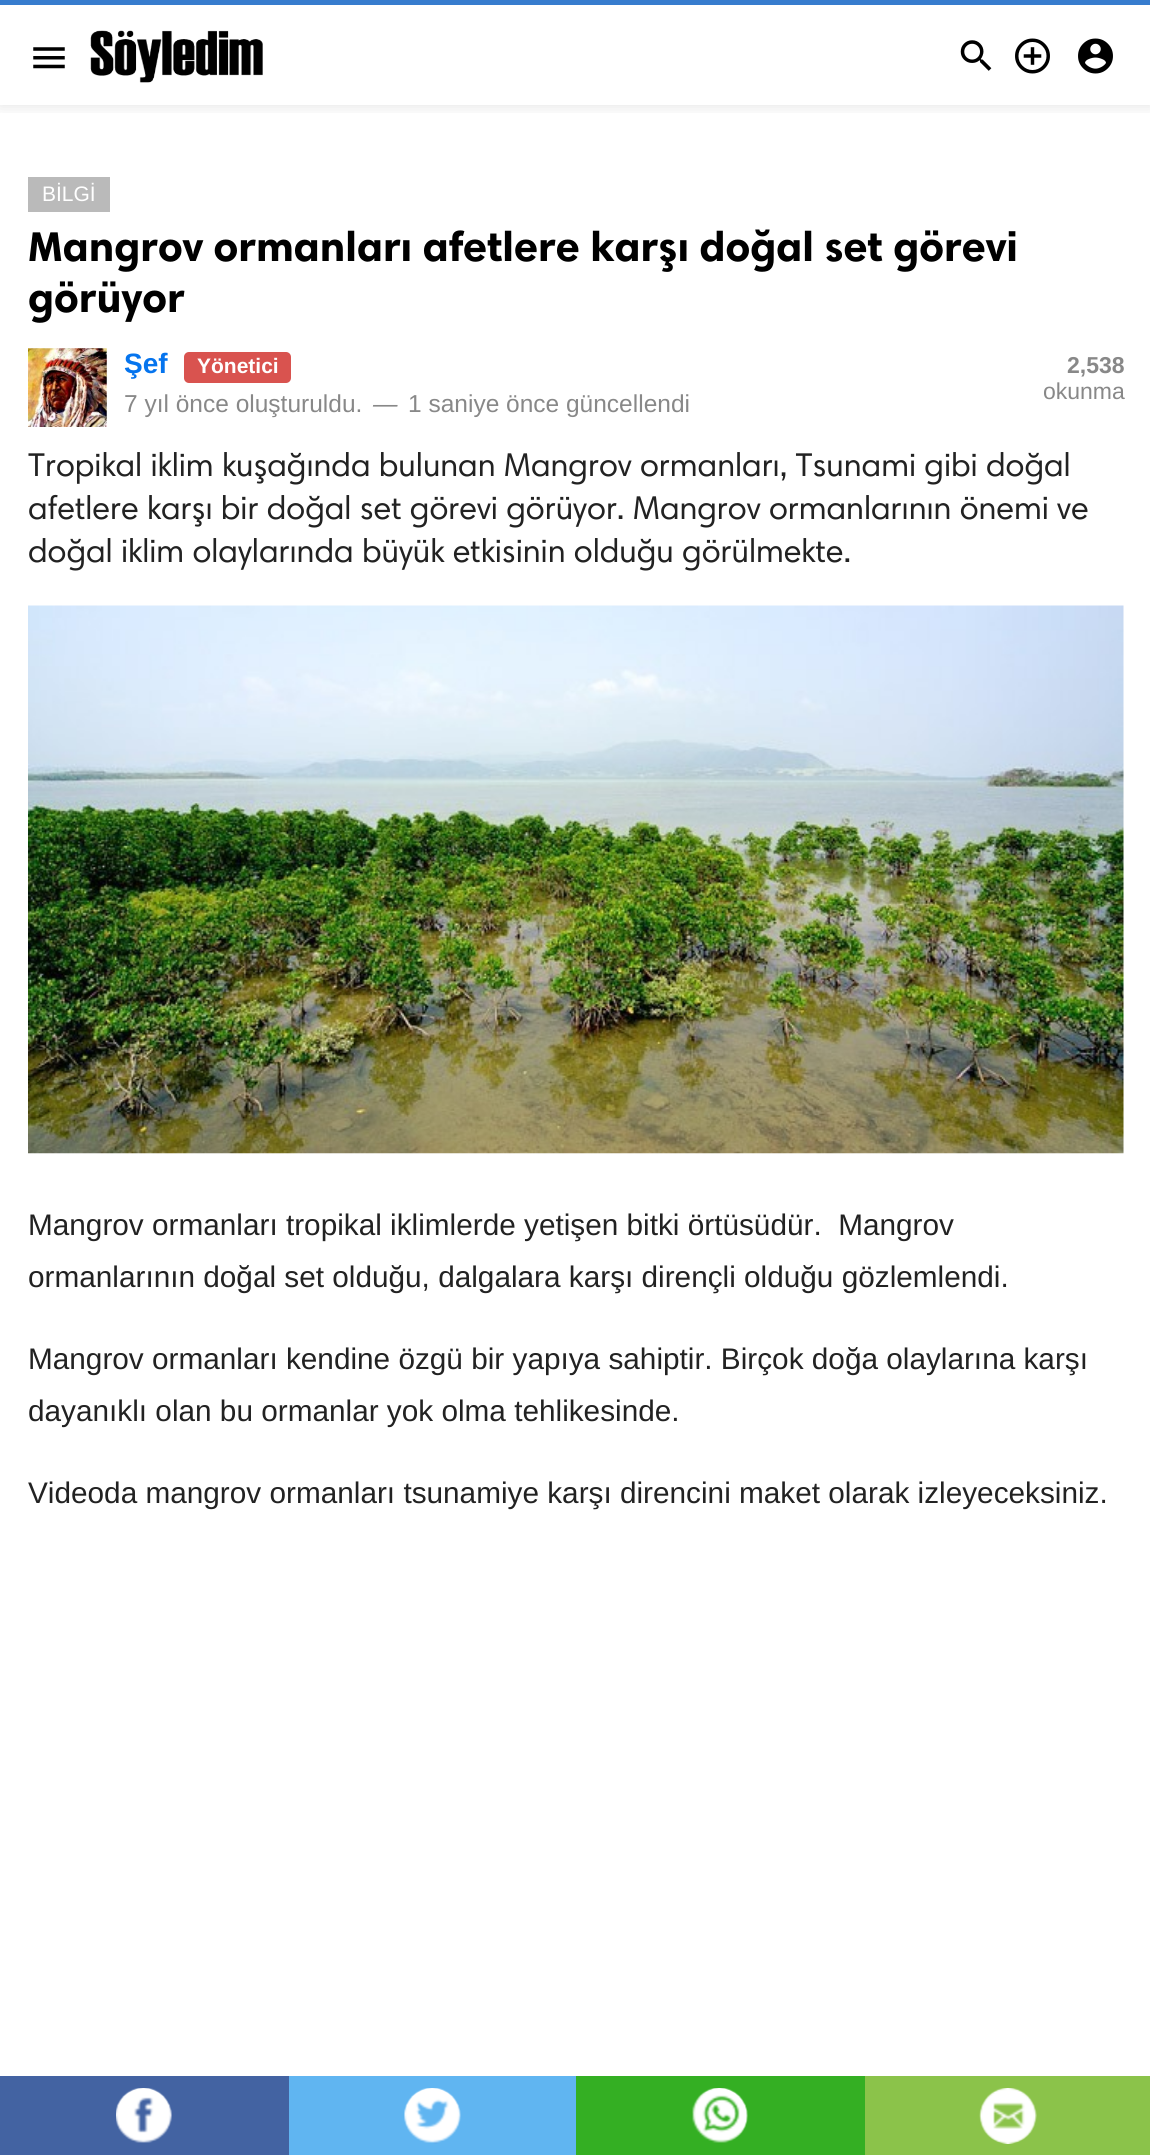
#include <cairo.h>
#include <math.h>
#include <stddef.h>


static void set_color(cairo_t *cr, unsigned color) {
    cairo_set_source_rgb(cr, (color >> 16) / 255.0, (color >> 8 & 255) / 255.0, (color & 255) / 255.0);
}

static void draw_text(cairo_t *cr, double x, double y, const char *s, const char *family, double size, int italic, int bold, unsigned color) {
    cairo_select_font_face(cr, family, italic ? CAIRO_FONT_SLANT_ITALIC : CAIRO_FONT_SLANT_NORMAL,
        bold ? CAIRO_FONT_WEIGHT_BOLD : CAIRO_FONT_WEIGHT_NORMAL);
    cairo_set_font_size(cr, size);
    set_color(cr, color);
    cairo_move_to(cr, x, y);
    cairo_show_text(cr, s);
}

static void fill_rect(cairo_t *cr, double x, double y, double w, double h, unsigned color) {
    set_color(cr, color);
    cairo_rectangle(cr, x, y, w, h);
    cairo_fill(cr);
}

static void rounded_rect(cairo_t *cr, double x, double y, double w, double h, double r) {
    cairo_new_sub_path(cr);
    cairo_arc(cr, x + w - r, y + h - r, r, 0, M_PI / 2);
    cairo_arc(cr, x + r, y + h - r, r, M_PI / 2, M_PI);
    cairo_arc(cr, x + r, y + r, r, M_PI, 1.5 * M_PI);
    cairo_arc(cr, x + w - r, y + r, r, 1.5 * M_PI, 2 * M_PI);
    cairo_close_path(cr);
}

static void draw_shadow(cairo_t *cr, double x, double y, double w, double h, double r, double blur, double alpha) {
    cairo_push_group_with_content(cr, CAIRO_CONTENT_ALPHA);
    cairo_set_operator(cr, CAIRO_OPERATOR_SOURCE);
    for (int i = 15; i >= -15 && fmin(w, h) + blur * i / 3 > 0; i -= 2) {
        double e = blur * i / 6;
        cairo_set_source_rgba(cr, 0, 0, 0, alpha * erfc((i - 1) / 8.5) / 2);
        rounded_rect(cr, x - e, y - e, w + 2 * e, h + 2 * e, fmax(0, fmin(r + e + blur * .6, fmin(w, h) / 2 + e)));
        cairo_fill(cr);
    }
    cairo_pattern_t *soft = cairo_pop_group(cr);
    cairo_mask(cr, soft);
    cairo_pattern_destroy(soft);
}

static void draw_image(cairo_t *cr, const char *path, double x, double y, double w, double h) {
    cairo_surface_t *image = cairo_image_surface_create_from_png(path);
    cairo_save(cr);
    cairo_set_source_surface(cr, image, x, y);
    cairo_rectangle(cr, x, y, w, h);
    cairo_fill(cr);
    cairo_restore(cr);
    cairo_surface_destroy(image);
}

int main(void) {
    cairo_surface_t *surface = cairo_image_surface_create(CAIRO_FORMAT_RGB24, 1150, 2155);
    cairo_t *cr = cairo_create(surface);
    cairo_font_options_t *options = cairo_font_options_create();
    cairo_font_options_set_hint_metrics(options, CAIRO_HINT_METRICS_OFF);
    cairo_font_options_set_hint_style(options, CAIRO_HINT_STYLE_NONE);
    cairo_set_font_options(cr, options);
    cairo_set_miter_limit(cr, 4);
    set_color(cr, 0xFFFFFF);
    cairo_paint(cr);
    cairo_save(cr);
    cairo_rectangle(cr, 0, 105, 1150, 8);
    cairo_clip(cr);
    set_color(cr, 0x000000);
    draw_shadow(cr, 0, 2, 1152, 105, 0, 7, 0.1);
    cairo_restore(cr);
    fill_rect(cr, 0, 0, 1150, 5, 0x377CCE);
    draw_image(cr, "assets/img1.png", 33, 47, 32, 22);
    draw_image(cr, "assets/img2.png", 90, 30, 173, 53);
    draw_image(cr, "assets/img3.png", 960, 40, 32, 31);
    draw_image(cr, "assets/img4.png", 1015, 38, 35, 36);
    draw_image(cr, "assets/img5.png", 1078, 38, 35, 36);
    fill_rect(cr, 28, 177, 82, 35, 0xBABABA);
    draw_text(cr, 42, 201, "BİLGİ", "Liberation Sans", 21, 0, 0, 0xFFFFFF);
    draw_text(cr, 28, 261, "Mangrov ormanları afetlere karşı doğal set görevi", "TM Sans", 42, 0, 1, 0x000000);
    draw_text(cr, 28, 312, "görüyor", "TM Sans", 42, 0, 1, 0x000000);
    draw_image(cr, "assets/img6.png", 28, 348, 79, 79);
    draw_text(cr, 124, 373, "Şef", "Liberation Sans", 28, 0, 1, 0x0574EE);
    set_color(cr, 0xD9534F);
    rounded_rect(cr, 184, 352, 107, 31, 5);
    cairo_fill(cr);
    draw_text(cr, 197, 373, "Yönetici", "Liberation Sans", 21, 0, 1, 0xFFFFFF);
    draw_text(cr, 124, 412, "7 yıl önce oluşturuldu.", "Liberation Sans", 24.5, 0, 0, 0x888888);
    draw_text(cr, 373, 412, "—", "Liberation Sans", 24.5, 1, 0, 0x888888);
    draw_text(cr, 408, 412, "1 saniye önce güncellendi", "Liberation Sans", 24.5, 0, 0, 0x888888);
    draw_text(cr, 1067, 373, "2,538", "Liberation Sans", 23, 0, 1, 0x888888);
    draw_text(cr, 1043, 399, "okunma", "Liberation Sans", 23, 0, 0, 0x888888);
    draw_text(cr, 28, 476, "Tropikal iklim kuşağında bulunan Mangrov ormanları, Tsunami gibi doğal", "TM Sans", 33.25, 0, 0, 0x222222);
    draw_text(cr, 28, 519, "afetlere karşı bir doğal set görevi görüyor. Mangrov ormanlarının önemi ve", "TM Sans", 33.25, 0, 0, 0x222222);
    draw_text(cr, 28, 562, "doğal iklim olaylarında büyük etkisinin olduğu görülmekte.", "TM Sans", 33.25, 0, 0, 0x222222);
    draw_image(cr, "assets/img7.png", 28, 605, 1096, 549);
    draw_text(cr, 28, 1235, "Mangrov ormanları tropikal iklimlerde yetişen bitki örtüsüdür.  Mangrov", "Liberation Sans", 29.75, 0, 0, 0x222222);
    draw_text(cr, 28, 1287, "ormanlarının doğal set olduğu, dalgalara karşı dirençli olduğu gözlemlendi.", "Liberation Sans", 29.75, 0, 0, 0x222222);
    draw_text(cr, 28, 1369, "Mangrov ormanları kendine özgü bir yapıya sahiptir. Birçok doğa olaylarına karşı", "Liberation Sans", 29.75, 0, 0, 0x222222);
    draw_text(cr, 28, 1421, "dayanıklı olan bu ormanlar yok olma tehlikesinde.", "Liberation Sans", 29.75, 0, 0, 0x222222);
    draw_text(cr, 28, 1503, "Videoda mangrov ormanları tsunamiye karşı direncini maket olarak izleyeceksiniz.", "Liberation Sans", 29.75, 0, 0, 0x222222);
    fill_rect(cr, 0, 2076, 289, 79, 0x4363A2);
    draw_image(cr, "assets/img8.png", 116, 2088, 56, 55);
    fill_rect(cr, 289, 2076, 287, 79, 0x60B5F1);
    draw_image(cr, "assets/img9.png", 404, 2088, 57, 56);
    fill_rect(cr, 576, 2076, 289, 79, 0x34AF23);
    draw_image(cr, "assets/img10.png", 692, 2088, 56, 55);
    fill_rect(cr, 865, 2076, 285, 79, 0x8BC34A);
    draw_image(cr, "assets/img11.png", 979, 2088, 58, 56);
    cairo_surface_write_to_png(surface, "output.png");
    cairo_font_options_destroy(options);
    cairo_destroy(cr);
    cairo_surface_destroy(surface);
    return 0;
}
